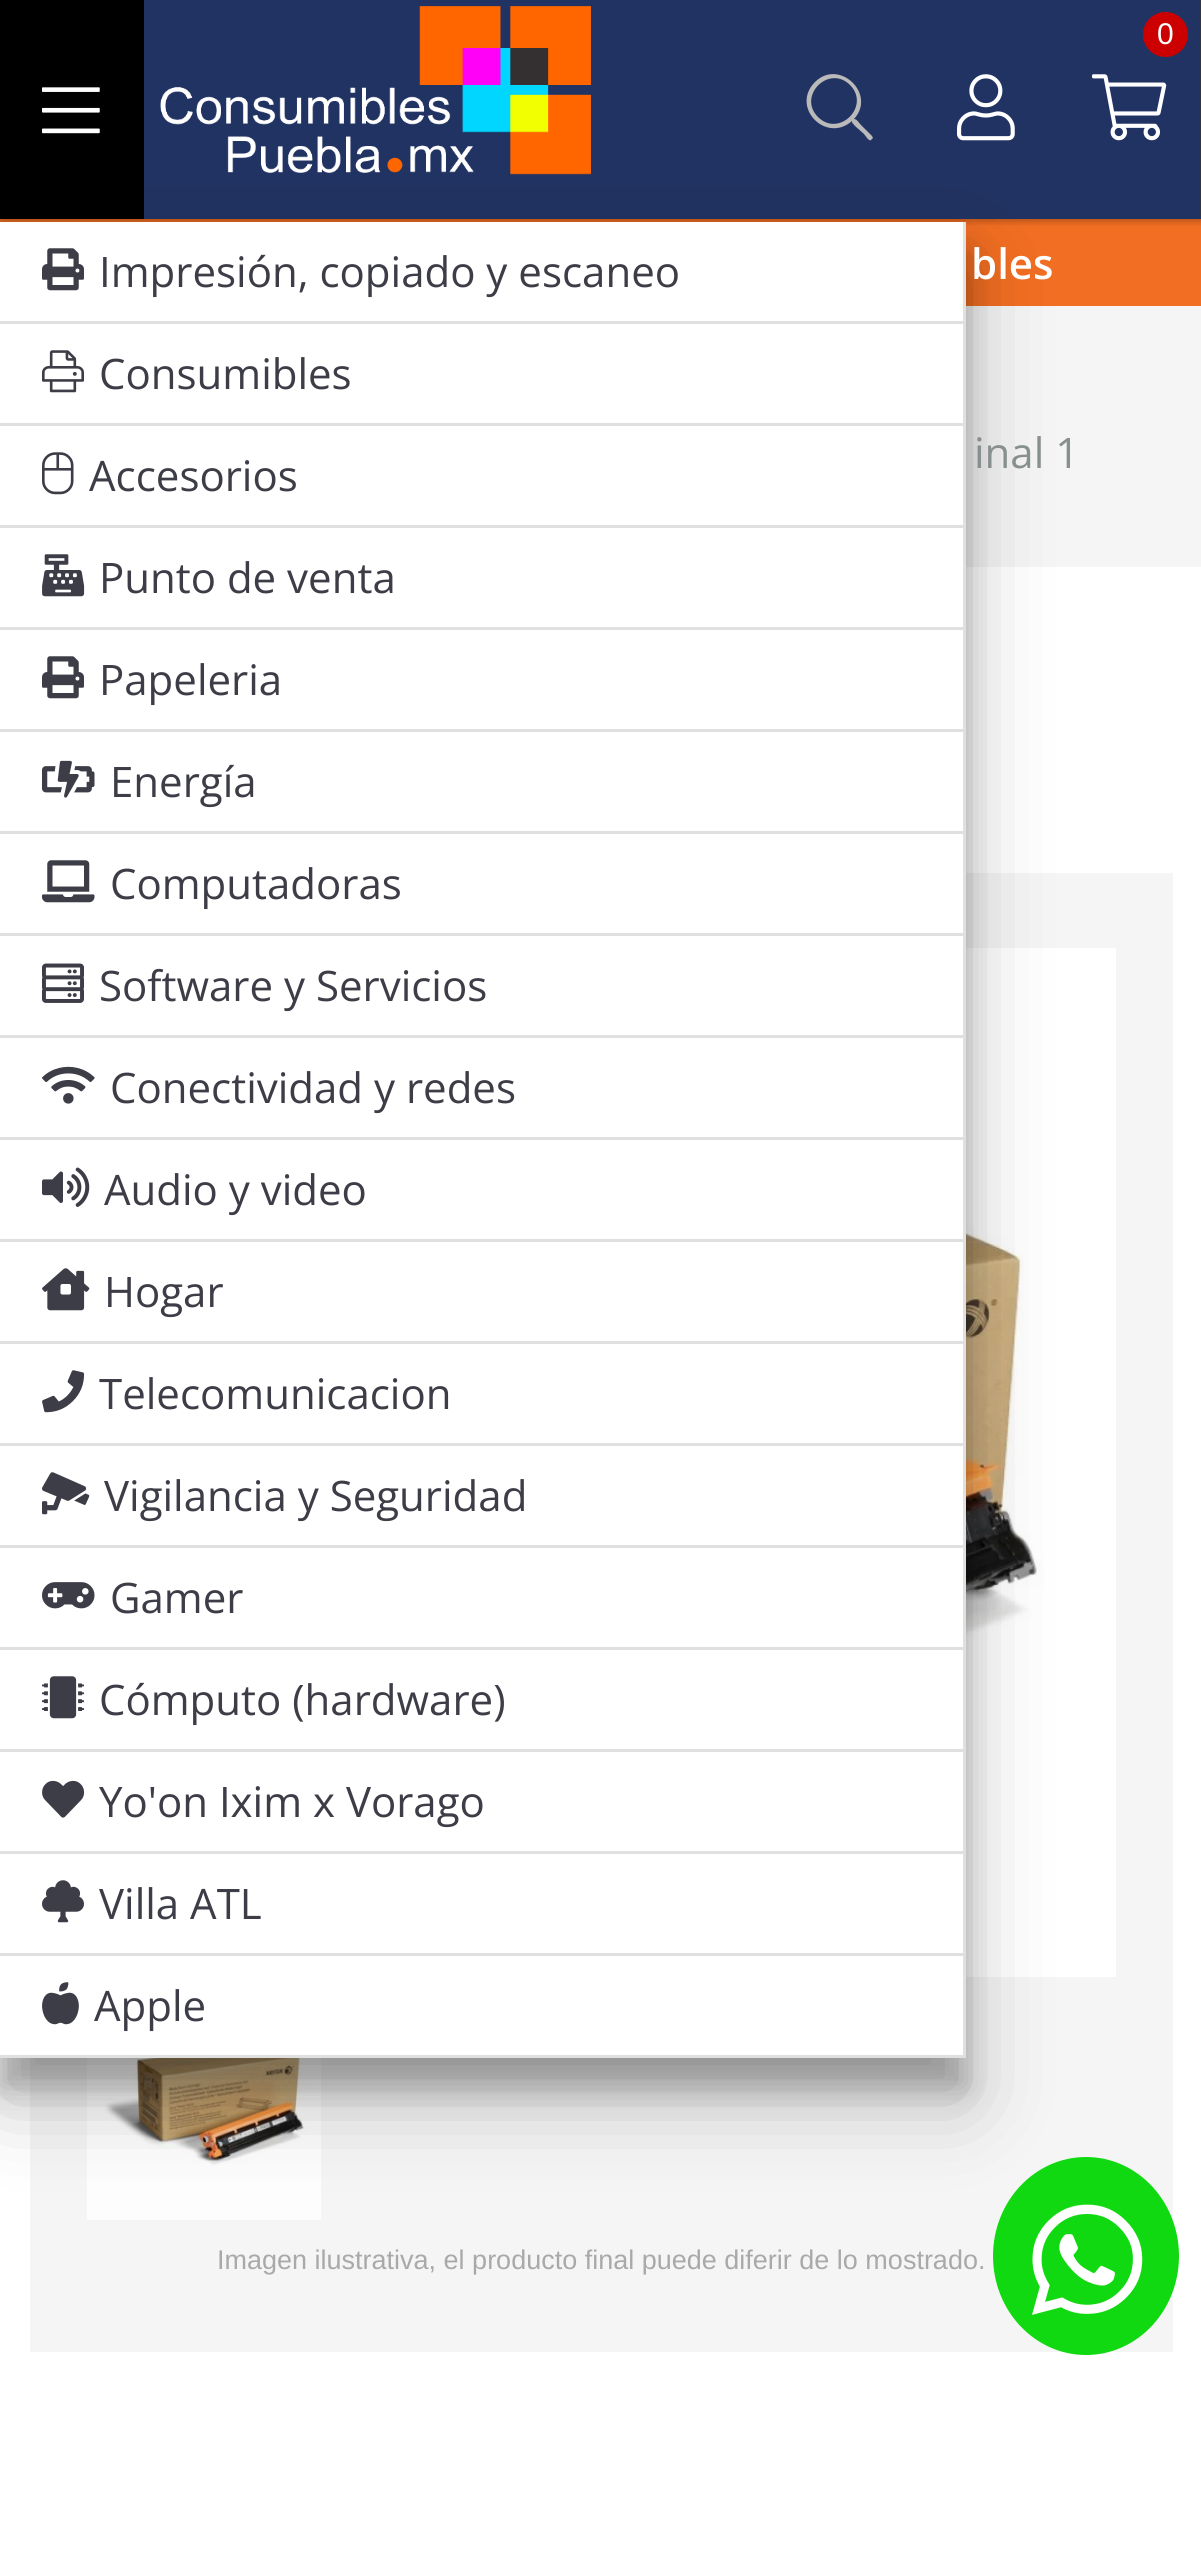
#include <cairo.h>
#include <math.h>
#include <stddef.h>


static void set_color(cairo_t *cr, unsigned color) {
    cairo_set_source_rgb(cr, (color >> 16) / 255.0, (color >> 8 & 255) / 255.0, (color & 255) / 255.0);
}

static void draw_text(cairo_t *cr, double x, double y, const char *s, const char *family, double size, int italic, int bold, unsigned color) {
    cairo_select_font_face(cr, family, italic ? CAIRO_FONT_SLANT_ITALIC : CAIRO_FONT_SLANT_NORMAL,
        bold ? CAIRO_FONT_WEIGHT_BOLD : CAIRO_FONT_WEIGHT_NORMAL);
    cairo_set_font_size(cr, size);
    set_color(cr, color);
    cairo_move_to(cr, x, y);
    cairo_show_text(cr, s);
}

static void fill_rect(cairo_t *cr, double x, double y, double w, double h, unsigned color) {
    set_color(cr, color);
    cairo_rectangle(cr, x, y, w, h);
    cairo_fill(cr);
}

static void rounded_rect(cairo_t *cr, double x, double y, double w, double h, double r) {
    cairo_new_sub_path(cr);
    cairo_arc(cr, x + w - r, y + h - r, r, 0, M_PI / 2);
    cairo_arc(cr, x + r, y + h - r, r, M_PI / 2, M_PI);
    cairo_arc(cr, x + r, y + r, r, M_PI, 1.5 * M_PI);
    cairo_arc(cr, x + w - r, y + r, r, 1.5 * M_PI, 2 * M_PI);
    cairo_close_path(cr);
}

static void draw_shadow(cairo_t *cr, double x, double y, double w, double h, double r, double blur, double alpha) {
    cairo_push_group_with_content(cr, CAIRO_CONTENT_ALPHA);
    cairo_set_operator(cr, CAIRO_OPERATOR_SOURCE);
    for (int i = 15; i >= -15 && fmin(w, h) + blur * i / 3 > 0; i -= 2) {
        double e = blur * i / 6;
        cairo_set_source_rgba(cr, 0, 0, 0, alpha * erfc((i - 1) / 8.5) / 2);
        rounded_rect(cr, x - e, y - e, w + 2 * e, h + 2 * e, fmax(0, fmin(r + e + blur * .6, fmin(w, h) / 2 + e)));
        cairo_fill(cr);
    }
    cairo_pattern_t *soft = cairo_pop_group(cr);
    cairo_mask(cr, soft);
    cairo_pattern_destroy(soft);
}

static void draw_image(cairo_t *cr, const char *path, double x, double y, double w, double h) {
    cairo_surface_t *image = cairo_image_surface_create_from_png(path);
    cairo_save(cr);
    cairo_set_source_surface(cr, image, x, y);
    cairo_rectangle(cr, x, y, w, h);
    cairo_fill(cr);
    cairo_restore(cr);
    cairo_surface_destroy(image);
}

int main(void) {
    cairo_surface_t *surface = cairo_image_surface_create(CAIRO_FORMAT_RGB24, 1201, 2573);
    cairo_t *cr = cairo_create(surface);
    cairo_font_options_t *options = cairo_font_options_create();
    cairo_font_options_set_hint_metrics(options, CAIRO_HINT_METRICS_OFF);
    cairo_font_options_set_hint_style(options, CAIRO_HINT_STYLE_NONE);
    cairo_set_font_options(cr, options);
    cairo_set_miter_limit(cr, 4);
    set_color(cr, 0xFFFFFF);
    cairo_paint(cr);
    fill_rect(cr, 0, 219, 600, 3, 0xF26E22);
    fill_rect(cr, 600, 219, 601, 87, 0xF26E22);
    set_color(cr, 0x000000);
    draw_shadow(cr, 0, 3, 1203, 219, 0, 3, 0.12);
    draw_shadow(cr, 0, 3, 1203, 219, 0, 3, 0.12);
    fill_rect(cr, 144, 0, 1057, 219, 0x213362);
    draw_image(cr, "assets/img1.png", 160, 6, 431, 169);
    fill_rect(cr, 1200, 0, 1, 216, 0x303641);
    set_color(cr, 0xCC0000);
    cairo_arc(cr, 1165.5, 34.5, 22.5, 0, 2 * M_PI);
    cairo_fill(cr);
    draw_text(cr, 1157, 44, "0", "Liberation Sans", 30, 0, 0, 0xFFFFFF);
    fill_rect(cr, 0, 0, 144, 219, 0x000000);
    fill_rect(cr, 966, 306, 235, 261, 0xF5F5F5);
    fill_rect(cr, 30, 873, 1143, 1479, 0xF5F5F5);
    draw_image(cr, "assets/img22.png", 966, 948, 150, 1029);
    draw_image(cr, "assets/img23.png", 87, 2058, 234, 162);
    set_color(cr, 0x000000);
    draw_shadow(cr, 0, 264, 966, 1836, 0, 42, 0.25);
    draw_image(cr, "assets/img2.png", 1092, 74, 75, 67);
    set_color(cr, 0xBABABA);
    cairo_new_path(cr);
    cairo_move_to(cr, 872, 136);
    cairo_line_to(cr, 873, 138);
    cairo_line_to(cr, 871, 140);
    cairo_curve_to(cr, 869, 142, 865, 135, 864, 134);
    cairo_line_to(cr, 855, 126);
    cairo_curve_to(cr, 853, 123, 852, 124, 852, 121);
    cairo_curve_to(cr, 826, 144, 790, 107, 815, 82);
    cairo_curve_to(cr, 839, 58, 877, 94, 854, 119);
    cairo_curve_to(cr, 857, 119, 859, 123, 861, 125);
    cairo_close_path(cr);
    cairo_move_to(cr, 818, 117);
    cairo_curve_to(cr, 839, 138, 871, 106, 850, 85);
    cairo_curve_to(cr, 829, 64, 797, 96, 818, 117);
    cairo_close_path(cr);
    cairo_fill(cr);
    draw_image(cr, "assets/img3.png", 957, 74, 58, 67);
    draw_image(cr, "assets/img4.png", 42, 87, 58, 47);
    set_color(cr, 0x000000);
    draw_shadow(cr, 0, 252, 966, 1836, 0, 15, 0.22);
    fill_rect(cr, 0, 222, 963, 1833, 0xFFFFFF);
    fill_rect(cr, 963, 222, 3, 1836, 0xE0E0E0);
    fill_rect(cr, 0, 321, 966, 3, 0xE0E0E0);
    draw_image(cr, "assets/img5.png", 42, 248, 42, 43);
    draw_text(cr, 99, 287, "Impresión, copiado y escaneo", "Open Sans", 42, 0, 0, 0x3D3D47);
    fill_rect(cr, 0, 423, 966, 3, 0xE0E0E0);
    draw_image(cr, "assets/img6.png", 42, 350, 42, 43);
    draw_text(cr, 99, 389, "Consumibles", "Open Sans", 42, 0, 0, 0x3D3D47);
    fill_rect(cr, 0, 525, 966, 3, 0xE0E0E0);
    draw_image(cr, "assets/img7.png", 42, 452, 32, 43);
    draw_text(cr, 89, 491, "Accesorios", "Open Sans", 42, 0, 0, 0x3D3D47);
    fill_rect(cr, 0, 627, 966, 3, 0xE0E0E0);
    draw_image(cr, "assets/img8.png", 42, 554, 43, 43);
    draw_text(cr, 99, 593, "Punto de venta", "Open Sans", 42, 0, 0, 0x3D3D47);
    fill_rect(cr, 0, 729, 966, 3, 0xE0E0E0);
    draw_image(cr, "assets/img5.png", 42, 656, 42, 43);
    draw_text(cr, 99, 695, "Papeleria", "Open Sans", 42, 0, 0, 0x3D3D47);
    fill_rect(cr, 0, 831, 966, 3, 0xE0E0E0);
    draw_image(cr, "assets/img9.png", 42, 760, 53, 38);
    draw_text(cr, 110, 797, "Energía", "Open Sans", 42, 0, 0, 0x3D3D47);
    fill_rect(cr, 0, 933, 966, 3, 0xE0E0E0);
    draw_image(cr, "assets/img10.png", 42, 860, 53, 43);
    draw_text(cr, 110, 899, "Computadoras", "Open Sans", 42, 0, 0, 0x3D3D47);
    fill_rect(cr, 0, 1035, 966, 3, 0xE0E0E0);
    draw_image(cr, "assets/img11.png", 42, 963, 42, 40);
    draw_text(cr, 99, 1001, "Software y Servicios", "Open Sans", 42, 0, 0, 0x3D3D47);
    fill_rect(cr, 0, 1137, 966, 3, 0xE0E0E0);
    draw_image(cr, "assets/img12.png", 42, 1066, 53, 38);
    draw_text(cr, 110, 1103, "Conectividad y redes", "Open Sans", 42, 0, 0, 0x3D3D47);
    fill_rect(cr, 0, 1239, 966, 3, 0xE0E0E0);
    draw_image(cr, "assets/img13.png", 42, 1167, 48, 40);
    draw_text(cr, 104, 1205, "Audio y video", "Open Sans", 42, 0, 0, 0x3D3D47);
    fill_rect(cr, 0, 1341, 966, 3, 0xE0E0E0);
    draw_image(cr, "assets/img14.png", 42, 1268, 48, 43);
    draw_text(cr, 104, 1307, "Hogar", "Open Sans", 42, 0, 0, 0x3D3D47);
    fill_rect(cr, 0, 1443, 966, 3, 0xE0E0E0);
    draw_image(cr, "assets/img15.png", 42, 1370, 43, 43);
    draw_text(cr, 99, 1409, "Telecomunicacion", "Open Sans", 42, 0, 0, 0x3D3D47);
    fill_rect(cr, 0, 1545, 966, 3, 0xE0E0E0);
    draw_image(cr, "assets/img16.png", 42, 1472, 48, 43);
    draw_text(cr, 104, 1511, "Vigilancia y Seguridad", "Open Sans", 42, 0, 0, 0x3D3D47);
    fill_rect(cr, 0, 1647, 966, 3, 0xE0E0E0);
    draw_image(cr, "assets/img17.png", 42, 1582, 53, 27);
    draw_text(cr, 110, 1613, "Gamer", "Open Sans", 42, 0, 0, 0x3D3D47);
    fill_rect(cr, 0, 1749, 966, 3, 0xE0E0E0);
    draw_image(cr, "assets/img18.png", 42, 1676, 42, 43);
    draw_text(cr, 99, 1715, "Cómputo (hardware)", "Open Sans", 42, 0, 0, 0x3D3D47);
    fill_rect(cr, 0, 1851, 966, 3, 0xE0E0E0);
    draw_image(cr, "assets/img19.png", 42, 1780, 43, 38);
    draw_text(cr, 99, 1817, "Yo'on Ixim x Vorago", "Open Sans", 42, 0, 0, 0x3D3D47);
    fill_rect(cr, 0, 1953, 966, 3, 0xE0E0E0);
    draw_image(cr, "assets/img20.png", 42, 1880, 42, 43);
    draw_text(cr, 99, 1919, "Villa ATL", "Open Sans", 42, 0, 0, 0x3D3D47);
    fill_rect(cr, 0, 2055, 966, 3, 0xE0E0E0);
    draw_image(cr, "assets/img21.png", 42, 1982, 37, 43);
    draw_text(cr, 94, 2021, "Apple", "Open Sans", 42, 0, 0, 0x3D3D47);
    draw_text(cr, 971, 279, "bles", "Open Sans SemiBold", 42, 0, 0, 0xFFFFFF);
    draw_text(cr, 974, 468, "inal 1", "Open Sans", 42, 0, 0, 0x888F8F);
    draw_text(cr, 217, 2269, "Imagen ilustrativa, el producto final puede diferir de lo mostrado.", "Liberation Sans", 27, 0, 0, 0xA9A9A9);
    set_color(cr, 0x11D911);
    cairo_new_path(cr);
    cairo_move_to(cr, 1086, 2157);
    cairo_curve_to(cr, 1137.5, 2157, 1179, 2201.5, 1179, 2256);
    cairo_curve_to(cr, 1179, 2310.5, 1137.5, 2355, 1086, 2355);
    cairo_curve_to(cr, 1034.5, 2355, 993, 2310.5, 993, 2256);
    cairo_curve_to(cr, 993, 2201.5, 1034.5, 2157, 1086, 2157);
    cairo_close_path(cr);
    cairo_fill(cr);
    draw_image(cr, "assets/img24.png", 1032, 2204, 111, 111);
    cairo_surface_write_to_png(surface, "output.png");
    cairo_font_options_destroy(options);
    cairo_destroy(cr);
    cairo_surface_destroy(surface);
    return 0;
}
